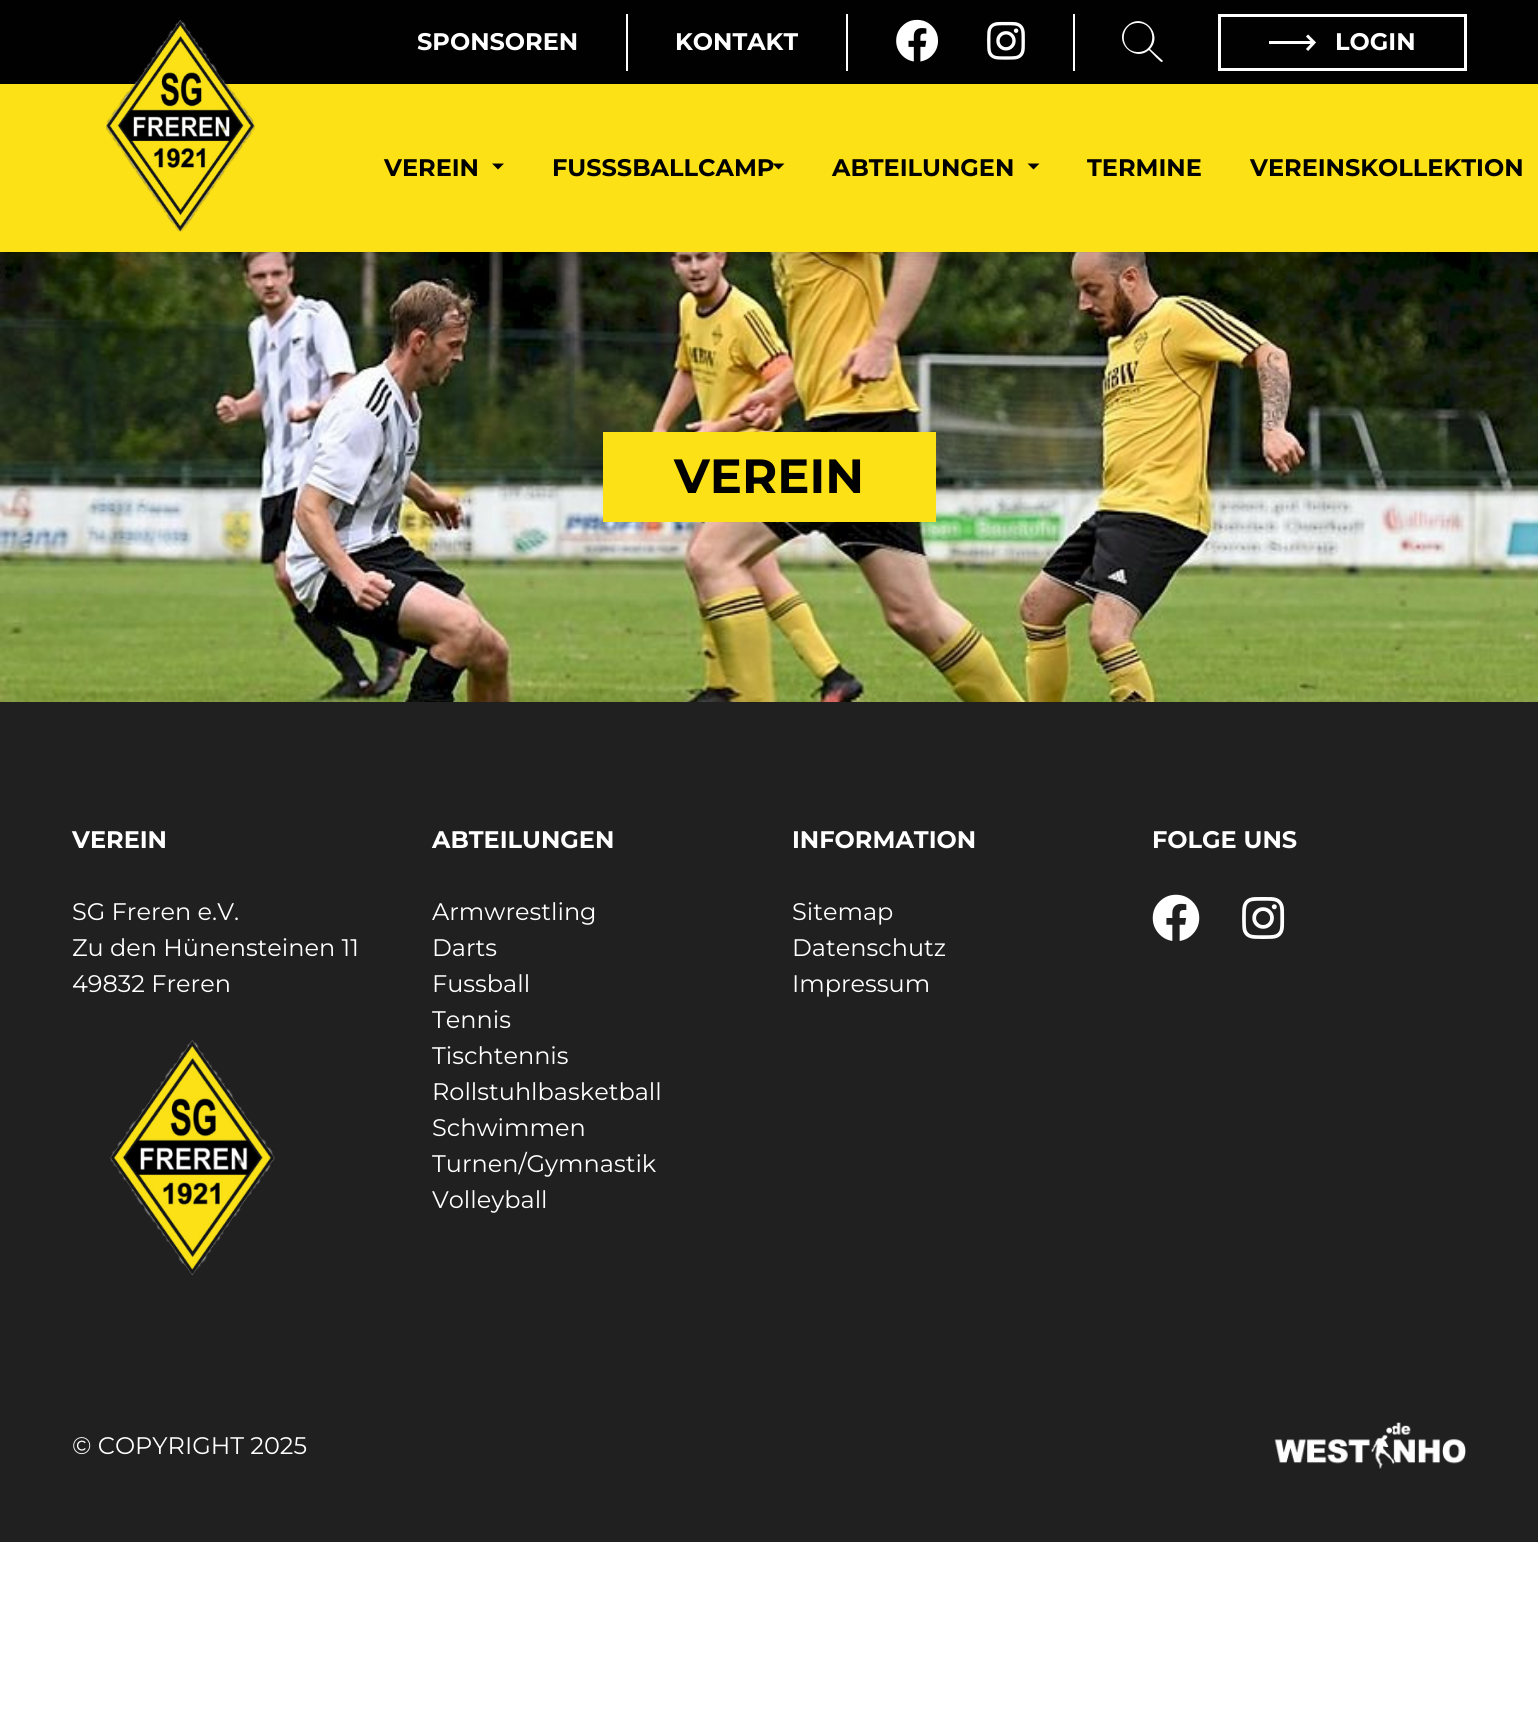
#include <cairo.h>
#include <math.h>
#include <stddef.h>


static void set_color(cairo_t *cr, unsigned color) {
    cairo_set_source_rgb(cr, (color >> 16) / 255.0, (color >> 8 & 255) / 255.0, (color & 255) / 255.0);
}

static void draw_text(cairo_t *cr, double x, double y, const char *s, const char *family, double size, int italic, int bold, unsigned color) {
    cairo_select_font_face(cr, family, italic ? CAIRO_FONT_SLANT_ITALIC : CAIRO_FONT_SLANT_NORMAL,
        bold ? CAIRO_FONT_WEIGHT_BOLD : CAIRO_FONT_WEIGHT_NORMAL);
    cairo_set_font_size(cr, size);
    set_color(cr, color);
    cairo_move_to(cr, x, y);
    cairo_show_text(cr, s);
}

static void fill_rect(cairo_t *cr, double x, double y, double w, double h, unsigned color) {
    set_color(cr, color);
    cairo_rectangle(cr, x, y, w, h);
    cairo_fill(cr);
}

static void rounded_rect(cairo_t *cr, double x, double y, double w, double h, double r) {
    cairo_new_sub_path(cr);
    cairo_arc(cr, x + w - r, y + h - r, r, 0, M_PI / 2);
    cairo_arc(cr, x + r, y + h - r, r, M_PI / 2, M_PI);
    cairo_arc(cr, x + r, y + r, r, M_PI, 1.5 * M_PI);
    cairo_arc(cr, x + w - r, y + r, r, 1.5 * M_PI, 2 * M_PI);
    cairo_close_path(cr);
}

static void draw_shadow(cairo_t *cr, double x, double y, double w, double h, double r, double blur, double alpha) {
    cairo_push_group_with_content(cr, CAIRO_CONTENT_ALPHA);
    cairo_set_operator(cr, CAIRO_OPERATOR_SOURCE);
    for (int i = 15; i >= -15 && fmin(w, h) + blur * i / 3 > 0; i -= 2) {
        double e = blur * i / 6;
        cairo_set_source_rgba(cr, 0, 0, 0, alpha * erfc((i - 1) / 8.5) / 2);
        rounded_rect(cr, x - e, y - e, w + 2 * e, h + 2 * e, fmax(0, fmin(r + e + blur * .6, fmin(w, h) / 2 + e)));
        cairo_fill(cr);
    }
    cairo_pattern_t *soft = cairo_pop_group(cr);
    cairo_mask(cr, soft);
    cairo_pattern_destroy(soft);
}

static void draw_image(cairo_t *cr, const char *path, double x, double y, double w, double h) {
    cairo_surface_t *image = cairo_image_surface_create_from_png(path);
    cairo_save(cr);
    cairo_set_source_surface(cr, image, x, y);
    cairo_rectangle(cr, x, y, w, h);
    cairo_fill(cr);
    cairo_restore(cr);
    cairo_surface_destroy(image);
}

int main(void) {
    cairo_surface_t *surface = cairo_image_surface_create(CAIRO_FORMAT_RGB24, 1538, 1736);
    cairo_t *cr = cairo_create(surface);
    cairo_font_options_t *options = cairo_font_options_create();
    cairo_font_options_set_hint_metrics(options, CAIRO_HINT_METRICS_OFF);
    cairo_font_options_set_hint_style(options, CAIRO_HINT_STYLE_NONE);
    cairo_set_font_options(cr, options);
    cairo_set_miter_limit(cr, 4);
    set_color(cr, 0xFFFFFF);
    cairo_paint(cr);
    draw_image(cr, "assets/img4.png", 0, 252, 1538, 450);
    set_color(cr, 0x000000);
    draw_shadow(cr, -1, 0, 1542, 255, 0, 11, 0.3);
    fill_rect(cr, 0, 0, 1538, 84, 0x010101);
    draw_text(cr, 417, 50, "SPONSOREN", "Montserrat Thin", 24, 0, 0, 0xFFFFFF);
    fill_rect(cr, 626, 14, 2, 57, 0xFFFFFF);
    draw_text(cr, 675, 50, "KONTAKT", "Montserrat Thin", 24, 0, 0, 0xFFFFFF);
    fill_rect(cr, 846, 14, 2, 57, 0xFFFFFF);
    draw_image(cr, "assets/img1.png", 896, 19, 42, 43);
    draw_image(cr, "assets/img2.png", 987, 21, 38, 39);
    fill_rect(cr, 1073, 14, 2, 57, 0xFFFFFF);
    cairo_new_path(cr);
    cairo_move_to(cr, 1163, 61);
    cairo_line_to(cr, 1150, 49);
    cairo_curve_to(cr, 1164, 34, 1142, 11, 1127, 26);
    cairo_curve_to(cr, 1112, 41, 1134, 63, 1149, 50);
    cairo_curve_to(cr, 1151, 52, 1161, 63, 1162, 62);
    cairo_close_path(cr);
    cairo_move_to(cr, 1138, 52);
    cairo_curve_to(cr, 1119, 52, 1119, 23, 1138, 23);
    cairo_curve_to(cr, 1157, 23, 1157, 52, 1138, 52);
    cairo_close_path(cr);
    cairo_fill(cr);
    cairo_rectangle(cr, 1219.5, 15.5, 246, 54);
    cairo_set_line_width(cr, 3);
    cairo_stroke(cr);
    fill_rect(cr, 1269, 41, 45, 3, 0xFFFFFF);
    cairo_new_path(cr);
    cairo_move_to(cr, 1307, 35.5);
    cairo_line_to(cr, 1314, 42.5);
    cairo_line_to(cr, 1307, 50);
    cairo_stroke(cr);
    draw_text(cr, 1335, 50, "LOGIN", "Montserrat Thin", 24, 0, 0, 0xFFFFFF);
    fill_rect(cr, 0, 84, 1538, 168, 0xFCE116);
    draw_image(cr, "assets/img3.png", 106, 20, 149, 212);
    draw_text(cr, 384, 176, "VEREIN", "Montserrat Thin", 24, 0, 0, 0x010101);
    cairo_new_path(cr);
    cairo_move_to(cr, 492, 163.5);
    cairo_line_to(cr, 504, 163.5);
    cairo_line_to(cr, 498, 169.5);
    cairo_close_path(cr);
    cairo_fill(cr);
    draw_text(cr, 552, 176, "FUSSSBALLCAMP", "Montserrat Thin", 24, 0, 0, 0x010101);
    cairo_new_path(cr);
    cairo_move_to(cr, 772.5, 163.5);
    cairo_line_to(cr, 784.5, 163.5);
    cairo_line_to(cr, 778.5, 169.5);
    cairo_close_path(cr);
    cairo_fill(cr);
    draw_text(cr, 832, 176, "ABTEILUNGEN", "Montserrat Thin", 24, 0, 0, 0x010101);
    cairo_new_path(cr);
    cairo_move_to(cr, 1027.5, 163.5);
    cairo_line_to(cr, 1039.5, 163.5);
    cairo_line_to(cr, 1033.5, 169.5);
    cairo_close_path(cr);
    cairo_fill(cr);
    draw_text(cr, 1087, 176, "TERMINE", "Montserrat Thin", 24, 0, 0, 0x010101);
    draw_text(cr, 1250, 176, "VEREINSKOLLEKTION", "Montserrat Thin", 24, 0, 0, 0x010101);
    fill_rect(cr, 603, 432, 333, 90, 0xFCE116);
    draw_text(cr, 674, 493, "VEREIN", "Montserrat Thin", 48, 0, 0, 0x010101);
    fill_rect(cr, 0, 702, 1538, 840, 0x202020);
    draw_text(cr, 72, 848, "VEREIN", "Montserrat Thin", 24, 0, 0, 0xFFFFFF);
    draw_text(cr, 72, 920, "SG Freren e.V.", "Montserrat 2 Thin", 24, 0, 0, 0xFFFFFF);
    draw_text(cr, 72, 956, "Zu den Hünensteinen 11", "Montserrat 2 Thin", 24, 0, 0, 0xFFFFFF);
    draw_text(cr, 72, 992, "49832 Freren", "Montserrat 2 Thin", 24, 0, 0, 0xFFFFFF);
    draw_image(cr, "assets/img5.png", 110, 1040, 165, 235);
    draw_text(cr, 432, 848, "ABTEILUNGEN", "Montserrat Thin", 24, 0, 0, 0xFFFFFF);
    draw_text(cr, 432, 920, "Armwrestling", "Montserrat 2 Thin", 24, 0, 0, 0xFFFFFF);
    draw_text(cr, 432, 956, "Darts", "Montserrat 2 Thin", 24, 0, 0, 0xFFFFFF);
    draw_text(cr, 432, 992, "Fussball", "Montserrat 2 Thin", 24, 0, 0, 0xFFFFFF);
    draw_text(cr, 432, 1028, "Tennis", "Montserrat 2 Thin", 24, 0, 0, 0xFFFFFF);
    draw_text(cr, 432, 1064, "Tischtennis", "Montserrat 2 Thin", 24, 0, 0, 0xFFFFFF);
    draw_text(cr, 432, 1100, "Rollstuhlbasketball", "Montserrat 2 Thin", 24, 0, 0, 0xFFFFFF);
    draw_text(cr, 432, 1136, "Schwimmen", "Montserrat 2 Thin", 24, 0, 0, 0xFFFFFF);
    draw_text(cr, 432, 1172, "Turnen/Gymnastik", "Montserrat 2 Thin", 24, 0, 0, 0xFFFFFF);
    draw_text(cr, 432, 1208, "Volleyball", "Montserrat 2 Thin", 24, 0, 0, 0xFFFFFF);
    draw_text(cr, 792, 848, "INFORMATION", "Montserrat Thin", 24, 0, 0, 0xFFFFFF);
    draw_text(cr, 792, 920, "Sitemap", "Montserrat 2 Thin", 24, 0, 0, 0xFFFFFF);
    draw_text(cr, 792, 956, "Datenschutz", "Montserrat 2 Thin", 24, 0, 0, 0xFFFFFF);
    draw_text(cr, 792, 992, "Impressum", "Montserrat 2 Thin", 24, 0, 0, 0xFFFFFF);
    draw_text(cr, 1152, 848, "FOLGE UNS", "Montserrat Thin", 24, 0, 0, 0xFFFFFF);
    draw_image(cr, "assets/img6.png", 1152, 894, 48, 47);
    draw_image(cr, "assets/img7.png", 1242, 897, 43, 42);
    draw_text(cr, 72, 1454, "© COPYRIGHT 2025", "Montserrat 2 Thin", 24, 0, 0, 0xFFFFFF);
    draw_image(cr, "assets/img8.png", 1274, 1422, 192, 47);
    cairo_surface_write_to_png(surface, "output.png");
    cairo_font_options_destroy(options);
    cairo_destroy(cr);
    cairo_surface_destroy(surface);
    return 0;
}
